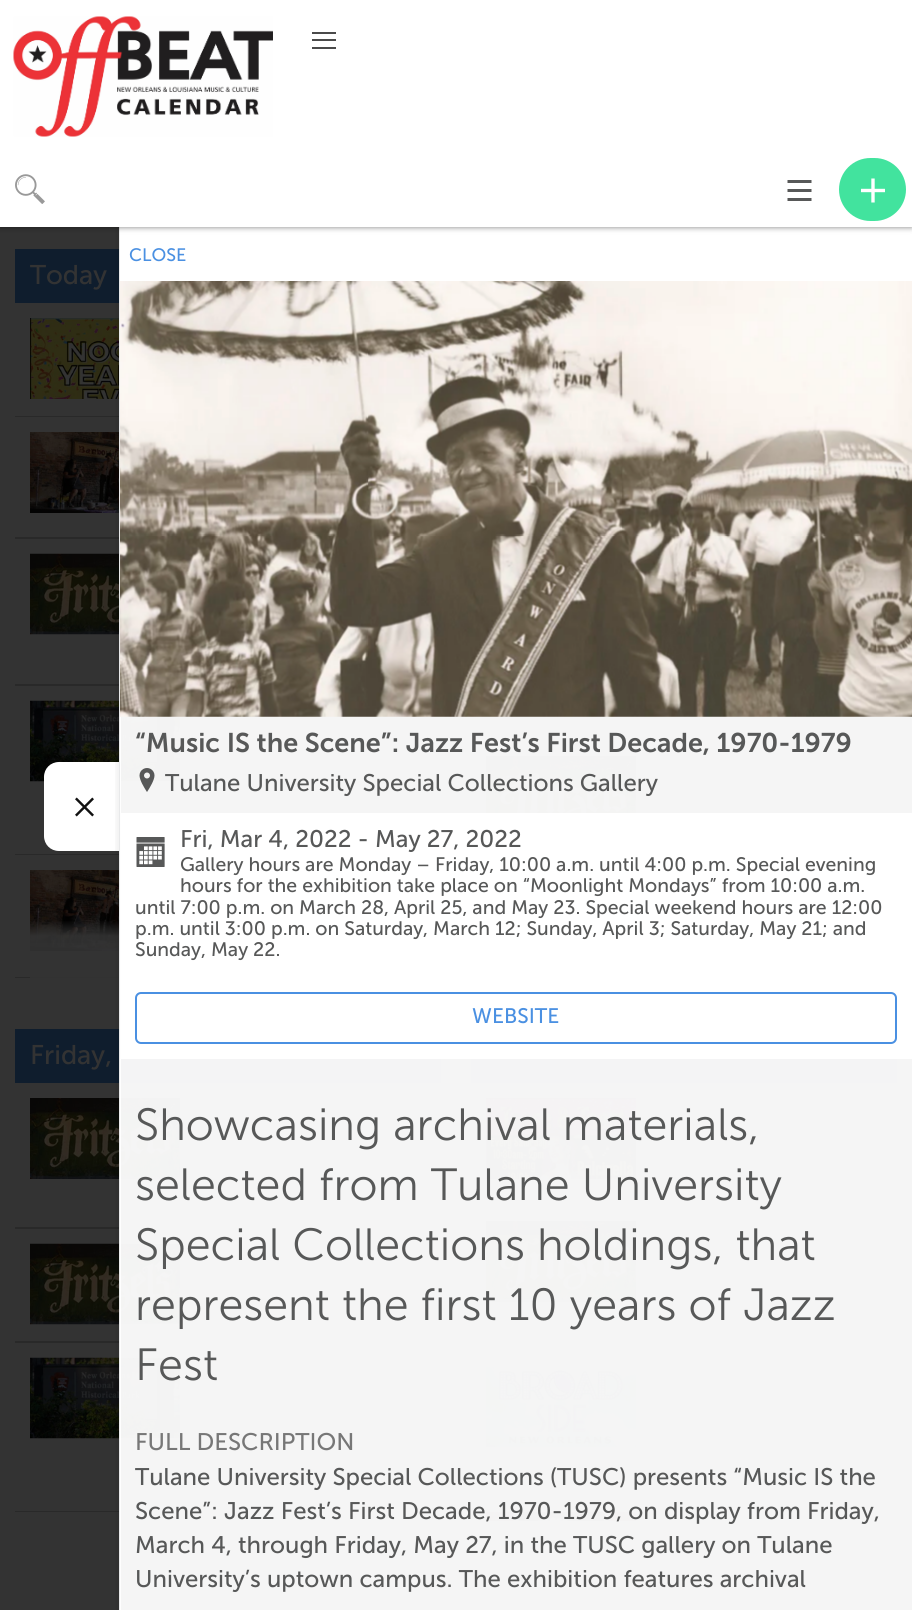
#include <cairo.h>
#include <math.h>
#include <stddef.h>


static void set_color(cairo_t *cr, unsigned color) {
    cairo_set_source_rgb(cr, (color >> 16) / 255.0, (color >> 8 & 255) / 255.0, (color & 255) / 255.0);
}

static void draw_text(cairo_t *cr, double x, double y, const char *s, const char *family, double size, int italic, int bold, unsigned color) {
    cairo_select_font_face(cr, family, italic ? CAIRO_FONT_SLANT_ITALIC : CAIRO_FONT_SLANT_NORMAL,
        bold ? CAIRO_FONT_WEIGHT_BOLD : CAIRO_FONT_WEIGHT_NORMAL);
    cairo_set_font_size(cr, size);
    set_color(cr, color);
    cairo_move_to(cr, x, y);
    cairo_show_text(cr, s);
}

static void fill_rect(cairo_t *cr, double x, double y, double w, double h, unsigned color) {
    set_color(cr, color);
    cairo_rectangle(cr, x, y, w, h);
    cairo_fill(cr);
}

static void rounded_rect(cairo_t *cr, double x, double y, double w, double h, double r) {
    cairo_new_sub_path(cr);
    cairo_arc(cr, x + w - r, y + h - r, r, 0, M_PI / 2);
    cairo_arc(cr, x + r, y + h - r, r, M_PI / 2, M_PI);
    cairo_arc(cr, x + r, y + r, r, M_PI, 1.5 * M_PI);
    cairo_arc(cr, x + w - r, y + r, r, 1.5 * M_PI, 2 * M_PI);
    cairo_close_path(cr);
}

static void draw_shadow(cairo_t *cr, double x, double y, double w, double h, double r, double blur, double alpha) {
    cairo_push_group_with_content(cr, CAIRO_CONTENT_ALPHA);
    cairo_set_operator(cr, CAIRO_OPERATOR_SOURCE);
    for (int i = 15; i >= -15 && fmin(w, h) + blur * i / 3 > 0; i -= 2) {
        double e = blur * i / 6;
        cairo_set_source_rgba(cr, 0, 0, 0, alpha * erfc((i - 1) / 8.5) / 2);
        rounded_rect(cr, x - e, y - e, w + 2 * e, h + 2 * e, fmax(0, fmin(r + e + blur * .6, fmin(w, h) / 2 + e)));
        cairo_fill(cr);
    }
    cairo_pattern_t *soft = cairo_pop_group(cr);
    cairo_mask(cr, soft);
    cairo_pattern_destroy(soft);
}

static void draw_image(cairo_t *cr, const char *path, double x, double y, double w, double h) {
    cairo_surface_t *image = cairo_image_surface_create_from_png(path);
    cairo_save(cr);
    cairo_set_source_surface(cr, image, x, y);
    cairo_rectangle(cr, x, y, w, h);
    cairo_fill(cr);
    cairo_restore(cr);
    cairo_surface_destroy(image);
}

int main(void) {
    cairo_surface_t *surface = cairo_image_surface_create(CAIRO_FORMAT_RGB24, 912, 1610);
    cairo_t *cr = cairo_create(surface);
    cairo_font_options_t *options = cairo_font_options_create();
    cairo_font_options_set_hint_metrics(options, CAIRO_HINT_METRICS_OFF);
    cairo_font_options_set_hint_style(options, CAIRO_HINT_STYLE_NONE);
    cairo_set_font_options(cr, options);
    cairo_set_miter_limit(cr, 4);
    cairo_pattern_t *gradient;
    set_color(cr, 0x333333);
    cairo_paint(cr);
    draw_image(cr, "assets/img8.png", 30, 700, 150, 82);
    fill_rect(cr, 15, 1029, 426, 54, 0x0F1D2D);
    fill_rect(cr, 15, 1227, 426, 2, 0x292929);
    draw_image(cr, "assets/img11.png", 30, 1098, 150, 81);
    fill_rect(cr, 15, 1341, 426, 2, 0x292929);
    draw_image(cr, "assets/img12.png", 30, 1243, 150, 82);
    fill_rect(cr, 15, 1511, 426, 1, 0x292929);
    draw_image(cr, "assets/img8.png", 30, 1357, 150, 82);
    fill_rect(cr, 15, 249, 104, 54, 0x0F1D2D);
    fill_rect(cr, 15, 416, 104, 1, 0x292929);
    draw_image(cr, "assets/img5.png", 30, 318, 89, 81);
    fill_rect(cr, 15, 537, 104, 2, 0x292929);
    draw_image(cr, "assets/img6.png", 30, 432, 89, 81);
    fill_rect(cr, 15, 684, 104, 2, 0x292929);
    draw_image(cr, "assets/img7.png", 30, 553, 89, 82);
    fill_rect(cr, 15, 854, 104, 1, 0x292929);
    fill_rect(cr, 15, 977, 104, 1, 0x292929);
    draw_image(cr, "assets/img6.png", 30, 870, 89, 81);
    draw_image(cr, "assets/img9.png", 30, 993, 89, 2);
    gradient = cairo_pattern_create_linear(228, 999, 228, 920);
    cairo_pattern_add_color_stop_rgba(gradient, 0, 0.2, 0.2, 0.2, 1);
    cairo_pattern_add_color_stop_rgba(gradient, 0.8, 0.2, 0.2, 0.2, 0.9);
    cairo_pattern_add_color_stop_rgba(gradient, 1, 0.2, 0.2, 0.2, 0);
    cairo_set_source(cr, gradient);
    cairo_pattern_destroy(gradient);
    cairo_rectangle(cr, 30, 921, 89, 74);
    cairo_fill(cr);
    fill_rect(cr, 471, 740, 426, 1, 0x292929);
    draw_image(cr, "assets/img10.png", 486, 756, 150, 57);
    fill_rect(cr, 471, 1059, 426, 24, 0x0F1D2D);
    fill_rect(cr, 471, 1205, 426, 1, 0x292929);
    draw_image(cr, "assets/img13.png", 486, 1098, 150, 81);
    fill_rect(cr, 471, 1350, 426, 2, 0x292929);
    draw_image(cr, "assets/img14.png", 486, 1221, 150, 81);
    fill_rect(cr, 471, 1496, 426, 1, 0x292929);
    draw_image(cr, "assets/img15.png", 486, 1366, 150, 82);
    draw_image(cr, "assets/img16.png", 486, 1512, 150, 9);
    set_color(cr, 0xFFFFFF);
    cairo_new_path(cr);
    cairo_move_to(cr, 59, 762);
    cairo_line_to(cr, 119, 762);
    cairo_line_to(cr, 119, 851);
    cairo_line_to(cr, 59, 851);
    cairo_curve_to(cr, 50.5, 851, 44, 844.5, 44, 836);
    cairo_line_to(cr, 44, 777);
    cairo_curve_to(cr, 44, 768.5, 50.5, 762, 59, 762);
    cairo_close_path(cr);
    cairo_fill(cr);
    cairo_save(cr);
    cairo_rectangle(cr, 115, 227, 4, 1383);
    cairo_clip(cr);
    set_color(cr, 0x000000);
    draw_shadow(cr, 116, 225, 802, 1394, 0, 3, 0.06);
    cairo_restore(cr);
    fill_rect(cr, 119, 227, 2, 1383, 0xE8E9EA);
    fill_rect(cr, 120, 227, 792, 54, 0xFFFFFF);
    set_color(cr, 0x000000);
    draw_shadow(cr, 0, 152, 912, 75, 0, 3, 0.5);
    fill_rect(cr, 0, 0, 912, 227, 0xFFFFFF);
    draw_image(cr, "assets/img1.png", 15, 174, 30, 30);
    draw_image(cr, "assets/img2.png", 787, 180, 25, 21);
    set_color(cr, 0x42E39E);
    rounded_rect(cr, 839, 158, 67, 63, 31.5);
    cairo_fill(cr);
    draw_image(cr, "assets/img3.png", 861, 178, 24, 25);
    draw_image(cr, "assets/img4.png", 13, 16, 260, 121);
    fill_rect(cr, 312, 32, 24, 2, 0x4A4A4A);
    fill_rect(cr, 312, 39, 24, 2, 0x4A4A4A);
    fill_rect(cr, 312, 47, 24, 2, 0x4A4A4A);
    draw_text(cr, 30, 284, "Today", "Museo Sans", 27, 0, 0, 0x333333);
    draw_text(cr, 30, 1064, "Friday,", "Museo Sans", 27, 0, 0, 0x333333);
    draw_image(cr, "assets/img17.png", 75, 797, 19, 20);
    cairo_set_source_rgba(cr, 1, 1, 1, 0.95);
    cairo_rectangle(cr, 120, 716, 792, 894);
    cairo_fill(cr);
    draw_text(cr, 129, 261, "CLOSE", "Museo Sans", 18, 0, 0, 0x4A90E2);
    draw_image(cr, "assets/img18.png", 120, 281, 792, 436);
    draw_text(cr, 135, 752, "“Music IS the Scene”: Jazz Fest’s First Decade, 1970-1979", "Museo Sans SemiBold", 27, 0, 0, 0x575858);
    draw_image(cr, "assets/img19.png", 139, 768, 16, 24);
    draw_text(cr, 165, 791, "Tulane University Special Collections Gallery", "Museo Sans", 24, 0, 0, 0x575858);
    fill_rect(cr, 121, 813, 791, 246, 0xFFFFFF);
    draw_image(cr, "assets/img20.png", 136, 837, 29, 30);
    draw_text(cr, 180, 847, "Fri, Mar 4, 2022 - May 27, 2022", "Museo Sans", 24, 0, 0, 0x575858);
    draw_text(cr, 180, 871, "Gallery hours are Monday – Friday, 10:00 a.m. until 4:00 p.m. Special evening", "Museo Sans", 19.5, 0, 0, 0x575858);
    draw_text(cr, 180, 892, "hours for the exhibition take place on “Moonlight Mondays” from 10:00 a.m.", "Museo Sans", 19.5, 0, 0, 0x575858);
    draw_text(cr, 135, 914, "until 7:00 p.m. on March 28, April 25, and May 23. Special weekend hours are 12:00", "Museo Sans", 19.5, 0, 0, 0x575858);
    draw_text(cr, 135, 935, "p.m. until 3:00 p.m. on Saturday, March 12; Sunday, April 3; Saturday, May 21; and", "Museo Sans", 19.5, 0, 0, 0x575858);
    draw_text(cr, 135, 956, "Sunday, May 22.", "Museo Sans", 19.5, 0, 0, 0x575858);
    rounded_rect(cr, 136, 993, 760, 50, 5);
    set_color(cr, 0x4A90E2);
    cairo_stroke(cr);
    draw_text(cr, 472, 1023, "WEBSITE", "Museo Sans", 21, 0, 0, 0x4A90E2);
    draw_text(cr, 135, 1140, "Showcasing archival materials,", "Museo Sans Light", 45, 0, 0, 0x575858);
    draw_text(cr, 135, 1200, "selected from Tulane University", "Museo Sans Light", 45, 0, 0, 0x575858);
    draw_text(cr, 135, 1260, "Special Collections holdings, that", "Museo Sans Light", 45, 0, 0, 0x575858);
    draw_text(cr, 135, 1320, "represent the first 10 years of Jazz", "Museo Sans Light", 45, 0, 0, 0x575858);
    draw_text(cr, 135, 1380, "Fest", "Museo Sans Light", 45, 0, 0, 0x575858);
    draw_text(cr, 135, 1450, "FULL DESCRIPTION", "Museo Sans", 24, 0, 0, 0x777777);
    draw_text(cr, 135, 1485, "Tulane University Special Collections (TUSC) presents “Music IS the", "Museo Sans", 24, 0, 0, 0x575858);
    draw_text(cr, 135, 1519, "Scene”: Jazz Fest’s First Decade, 1970-1979, on display from Friday,", "Museo Sans", 24, 0, 0, 0x575858);
    draw_text(cr, 135, 1553, "March 4, through Friday, May 27, in the TUSC gallery on Tulane", "Museo Sans", 24, 0, 0, 0x575858);
    draw_text(cr, 135, 1587, "University’s uptown campus. The exhibition features archival", "Museo Sans", 24, 0, 0, 0x575858);
    cairo_surface_write_to_png(surface, "output.png");
    cairo_font_options_destroy(options);
    cairo_destroy(cr);
    cairo_surface_destroy(surface);
    return 0;
}
